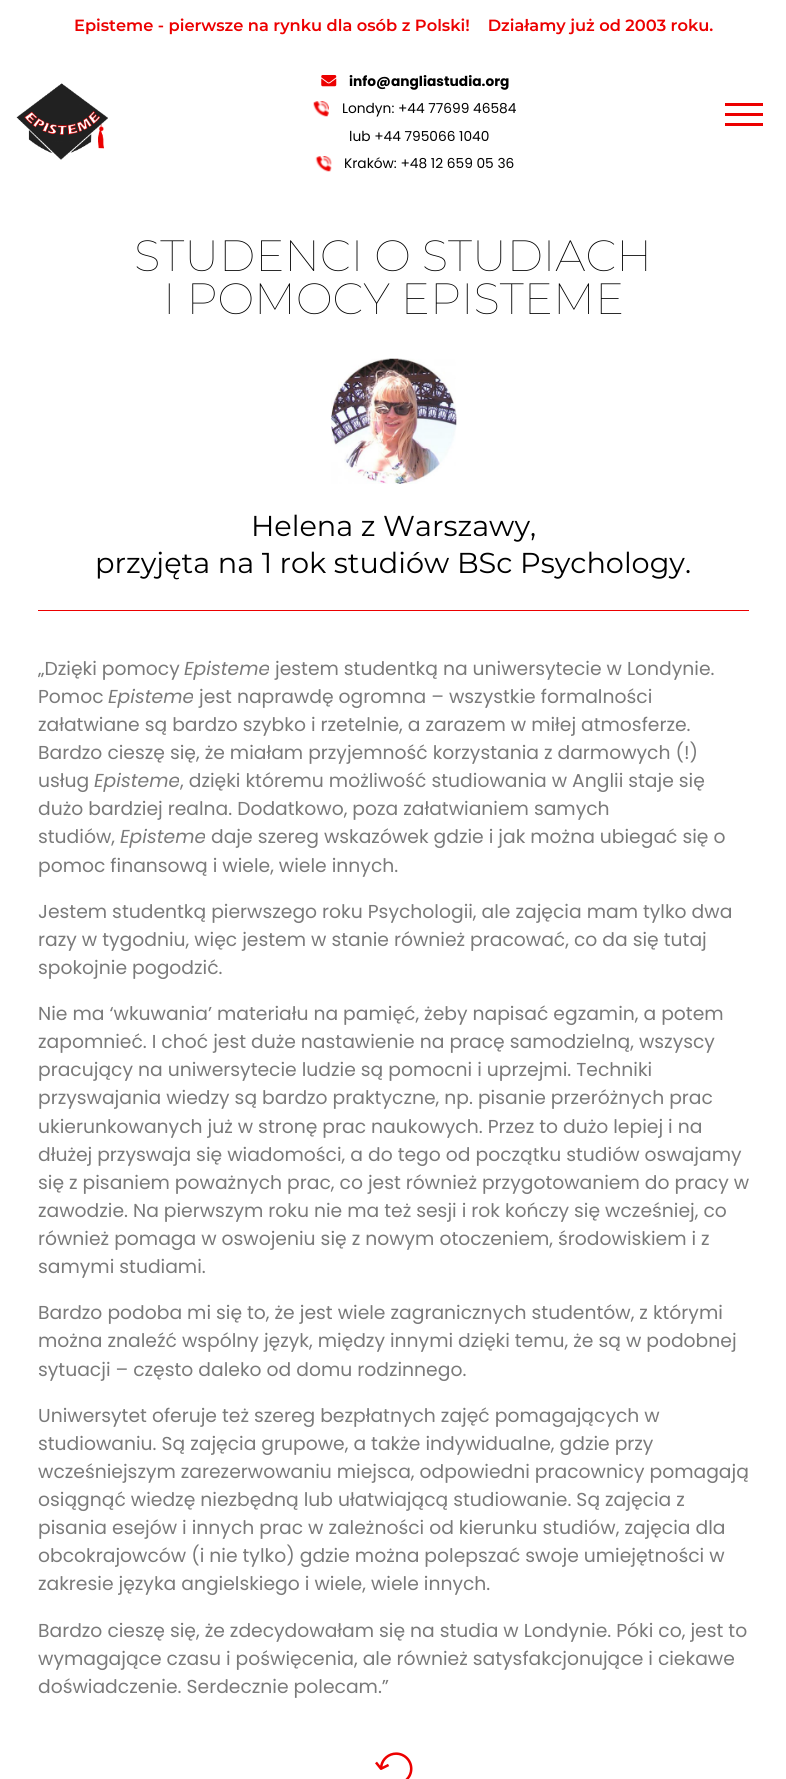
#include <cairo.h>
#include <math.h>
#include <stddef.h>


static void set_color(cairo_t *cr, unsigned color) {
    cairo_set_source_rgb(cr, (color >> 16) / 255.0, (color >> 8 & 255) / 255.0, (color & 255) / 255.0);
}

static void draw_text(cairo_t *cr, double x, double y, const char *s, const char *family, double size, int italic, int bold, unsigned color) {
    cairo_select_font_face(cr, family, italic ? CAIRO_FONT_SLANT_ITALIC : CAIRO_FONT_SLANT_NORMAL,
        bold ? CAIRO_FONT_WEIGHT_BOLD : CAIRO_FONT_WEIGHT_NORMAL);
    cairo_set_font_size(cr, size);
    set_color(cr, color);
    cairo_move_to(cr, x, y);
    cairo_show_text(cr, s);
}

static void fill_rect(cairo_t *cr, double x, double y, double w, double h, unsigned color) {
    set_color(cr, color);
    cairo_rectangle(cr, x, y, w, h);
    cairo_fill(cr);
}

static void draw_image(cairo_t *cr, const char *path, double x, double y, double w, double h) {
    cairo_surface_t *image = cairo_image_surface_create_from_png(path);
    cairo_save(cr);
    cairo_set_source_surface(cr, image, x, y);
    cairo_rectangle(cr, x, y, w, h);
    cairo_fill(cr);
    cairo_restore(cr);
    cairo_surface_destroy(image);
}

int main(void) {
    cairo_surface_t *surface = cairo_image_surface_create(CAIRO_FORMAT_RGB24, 786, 1779);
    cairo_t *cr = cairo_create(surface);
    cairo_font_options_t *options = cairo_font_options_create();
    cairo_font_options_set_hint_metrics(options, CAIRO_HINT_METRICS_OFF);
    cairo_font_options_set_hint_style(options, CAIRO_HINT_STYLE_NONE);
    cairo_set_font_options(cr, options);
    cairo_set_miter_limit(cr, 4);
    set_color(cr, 0xFFFFFF);
    cairo_paint(cr);
    draw_text(cr, 74, 31, "Episteme - pierwsze na rynku dla osób z Polski!    Działamy już od 2003 roku.", "Montserrat SemiBold", 16.25, 0, 0, 0xEC0000);
    draw_image(cr, "assets/img1.png", 16, 83, 92, 77);
    draw_image(cr, "assets/img2.png", 321, 75, 16, 12);
    draw_text(cr, 349, 86, "info@angliastudia.org", "Poppins", 13.75, 0, 1, 0x000000);
    draw_image(cr, "assets/img3.png", 313, 101, 16, 16);
    draw_text(cr, 342, 113, "Londyn: +44 77699 46584", "Poppins", 13.75, 0, 0, 0x000000);
    draw_text(cr, 349, 141, "lub +44 795066 1040", "Poppins", 13.75, 0, 0, 0x000000);
    draw_image(cr, "assets/img4.png", 315, 156, 17, 16);
    draw_text(cr, 344, 168, "Kraków: +48 12 659 05 36", "Poppins", 13.75, 0, 0, 0x000000);
    fill_rect(cr, 725, 113, 38, 3, 0xEC0000);
    fill_rect(cr, 725, 103, 38, 3, 0xEC0000);
    fill_rect(cr, 725, 123, 38, 3, 0xEC0000);
    draw_text(cr, 134, 271, "STUDENCI O STUDIACH", "Montserrat Thin", 43.75, 0, 0, 0x000000);
    draw_text(cr, 163, 314, "I POMOCY EPISTEME", "Montserrat Thin", 43.75, 0, 0, 0x000000);
    draw_image(cr, "assets/img5.png", 331, 358, 126, 126);
    draw_text(cr, 251, 536, "Helena z Warszawy,", "Montserrat", 28.75, 0, 0, 0x000000);
    draw_text(cr, 95, 573, "przyjęta na 1 rok studiów BSc Psychology.", "Montserrat", 28.75, 0, 0, 0x000000);
    fill_rect(cr, 38, 610, 711, 1, 0xEC0000);
    draw_text(cr, 38, 675, "„Dzięki pomocy", "Poppins", 18.75, 0, 0, 0x7A7A7A);
    draw_text(cr, 184, 675, "Episteme", "Poppins", 18.75, 1, 0, 0x7A7A7A);
    draw_text(cr, 275, 675, "jestem studentką na uniwersytecie w Londynie.", "Poppins", 18.75, 0, 0, 0x7A7A7A);
    draw_text(cr, 38, 703, "Pomoc", "Poppins", 18.75, 0, 0, 0x7A7A7A);
    draw_text(cr, 108, 703, "Episteme", "Poppins", 18.75, 1, 0, 0x7A7A7A);
    draw_text(cr, 199, 703, "jest naprawdę ogromna – wszystkie formalności", "Poppins", 18.75, 0, 0, 0x7A7A7A);
    draw_text(cr, 38, 731, "załatwiane są bardzo szybko i rzetelnie, a zarazem w miłej atmosferze.", "Poppins", 18.75, 0, 0, 0x7A7A7A);
    draw_text(cr, 38, 759, "Bardzo cieszę się, że miałam przyjemność korzystania z darmowych (!)", "Poppins", 18.75, 0, 0, 0x7A7A7A);
    draw_text(cr, 38, 787, "usług", "Poppins", 18.75, 0, 0, 0x7A7A7A);
    draw_text(cr, 94, 787, "Episteme", "Poppins", 18.75, 1, 0, 0x7A7A7A);
    draw_text(cr, 180, 787, ", dzięki któremu możliwość studiowania w Anglii staje się", "Poppins", 18.75, 0, 0, 0x7A7A7A);
    draw_text(cr, 38, 815, "dużo bardziej realna. Dodatkowo, poza załatwianiem samych", "Poppins", 18.75, 0, 0, 0x7A7A7A);
    draw_text(cr, 38, 843, "studiów,", "Poppins", 18.75, 0, 0, 0x7A7A7A);
    draw_text(cr, 120, 843, "Episteme", "Poppins", 18.75, 1, 0, 0x7A7A7A);
    draw_text(cr, 211, 843, "daje szereg wskazówek gdzie i jak można ubiegać się o", "Poppins", 18.75, 0, 0, 0x7A7A7A);
    draw_text(cr, 38, 872, "pomoc finansową i wiele, wiele innych.", "Poppins", 18.75, 0, 0, 0x7A7A7A);
    draw_text(cr, 38, 918, "Jestem studentką pierwszego roku Psychologii, ale zajęcia mam tylko dwa", "Poppins", 18.75, 0, 0, 0x7A7A7A);
    draw_text(cr, 38, 946, "razy w tygodniu, więc jestem w stanie również pracować, co da się tutaj", "Poppins", 18.75, 0, 0, 0x7A7A7A);
    draw_text(cr, 38, 974, "spokojnie pogodzić.", "Poppins", 18.75, 0, 0, 0x7A7A7A);
    draw_text(cr, 38, 1020, "Nie ma ‘wkuwania’ materiału na pamięć, żeby napisać egzamin, a potem", "Poppins", 18.75, 0, 0, 0x7A7A7A);
    draw_text(cr, 38, 1048, "zapomnieć. I choć jest duże nastawienie na pracę samodzielną, wszyscy", "Poppins", 18.75, 0, 0, 0x7A7A7A);
    draw_text(cr, 38, 1076, "pracujący na uniwersytecie ludzie są pomocni i uprzejmi. Techniki", "Poppins", 18.75, 0, 0, 0x7A7A7A);
    draw_text(cr, 38, 1104, "przyswajania wiedzy są bardzo praktyczne, np. pisanie przeróżnych prac", "Poppins", 18.75, 0, 0, 0x7A7A7A);
    draw_text(cr, 38, 1133, "ukierunkowanych już w stronę prac naukowych. Przez to dużo lepiej i na", "Poppins", 18.75, 0, 0, 0x7A7A7A);
    draw_text(cr, 38, 1161, "dłużej przyswaja się wiadomości, a do tego od początku studiów oswajamy", "Poppins", 18.75, 0, 0, 0x7A7A7A);
    draw_text(cr, 38, 1189, "się z pisaniem poważnych prac, co jest również przygotowaniem do pracy w", "Poppins", 18.75, 0, 0, 0x7A7A7A);
    draw_text(cr, 38, 1217, "zawodzie. Na pierwszym roku nie ma też sesji i rok kończy się wcześniej, co", "Poppins", 18.75, 0, 0, 0x7A7A7A);
    draw_text(cr, 38, 1245, "również pomaga w oswojeniu się z nowym otoczeniem, środowiskiem i z", "Poppins", 18.75, 0, 0, 0x7A7A7A);
    draw_text(cr, 38, 1273, "samymi studiami.", "Poppins", 18.75, 0, 0, 0x7A7A7A);
    draw_text(cr, 38, 1319, "Bardzo podoba mi się to, że jest wiele zagranicznych studentów, z którymi", "Poppins", 18.75, 0, 0, 0x7A7A7A);
    draw_text(cr, 38, 1347, "można znaleźć wspólny język, między innymi dzięki temu, że są w podobnej", "Poppins", 18.75, 0, 0, 0x7A7A7A);
    draw_text(cr, 38, 1376, "sytuacji – często daleko od domu rodzinnego.", "Poppins", 18.75, 0, 0, 0x7A7A7A);
    draw_text(cr, 38, 1422, "Uniwersytet oferuje też szereg bezpłatnych zajęć pomagających w", "Poppins", 18.75, 0, 0, 0x7A7A7A);
    draw_text(cr, 38, 1450, "studiowaniu. Są zajęcia grupowe, a także indywidualne, gdzie przy", "Poppins", 18.75, 0, 0, 0x7A7A7A);
    draw_text(cr, 38, 1478, "wcześniejszym zarezerwowaniu miejsca, odpowiedni pracownicy pomagają", "Poppins", 18.75, 0, 0, 0x7A7A7A);
    draw_text(cr, 38, 1506, "osiągnąć wiedzę niezbędną lub ułatwiającą studiowanie. Są zajęcia z", "Poppins", 18.75, 0, 0, 0x7A7A7A);
    draw_text(cr, 38, 1534, "pisania esejów i innych prac w zależności od kierunku studiów, zajęcia dla", "Poppins", 18.75, 0, 0, 0x7A7A7A);
    draw_text(cr, 38, 1562, "obcokrajowców (i nie tylko) gdzie można polepszać swoje umiejętności w", "Poppins", 18.75, 0, 0, 0x7A7A7A);
    draw_text(cr, 38, 1590, "zakresie języka angielskiego i wiele, wiele innych.", "Poppins", 18.75, 0, 0, 0x7A7A7A);
    draw_text(cr, 38, 1637, "Bardzo cieszę się, że zdecydowałam się na studia w Londynie. Póki co, jest to", "Poppins", 18.75, 0, 0, 0x7A7A7A);
    draw_text(cr, 38, 1665, "wymagające czasu i poświęcenia, ale również satysfakcjonujące i ciekawe", "Poppins", 18.75, 0, 0, 0x7A7A7A);
    draw_text(cr, 38, 1693, "doświadczenie. Serdecznie polecam.”", "Poppins", 18.75, 0, 0, 0x7A7A7A);
    draw_image(cr, "assets/img6.png", 375, 1752, 38, 27);
    cairo_surface_write_to_png(surface, "output.png");
    cairo_font_options_destroy(options);
    cairo_destroy(cr);
    cairo_surface_destroy(surface);
    return 0;
}
